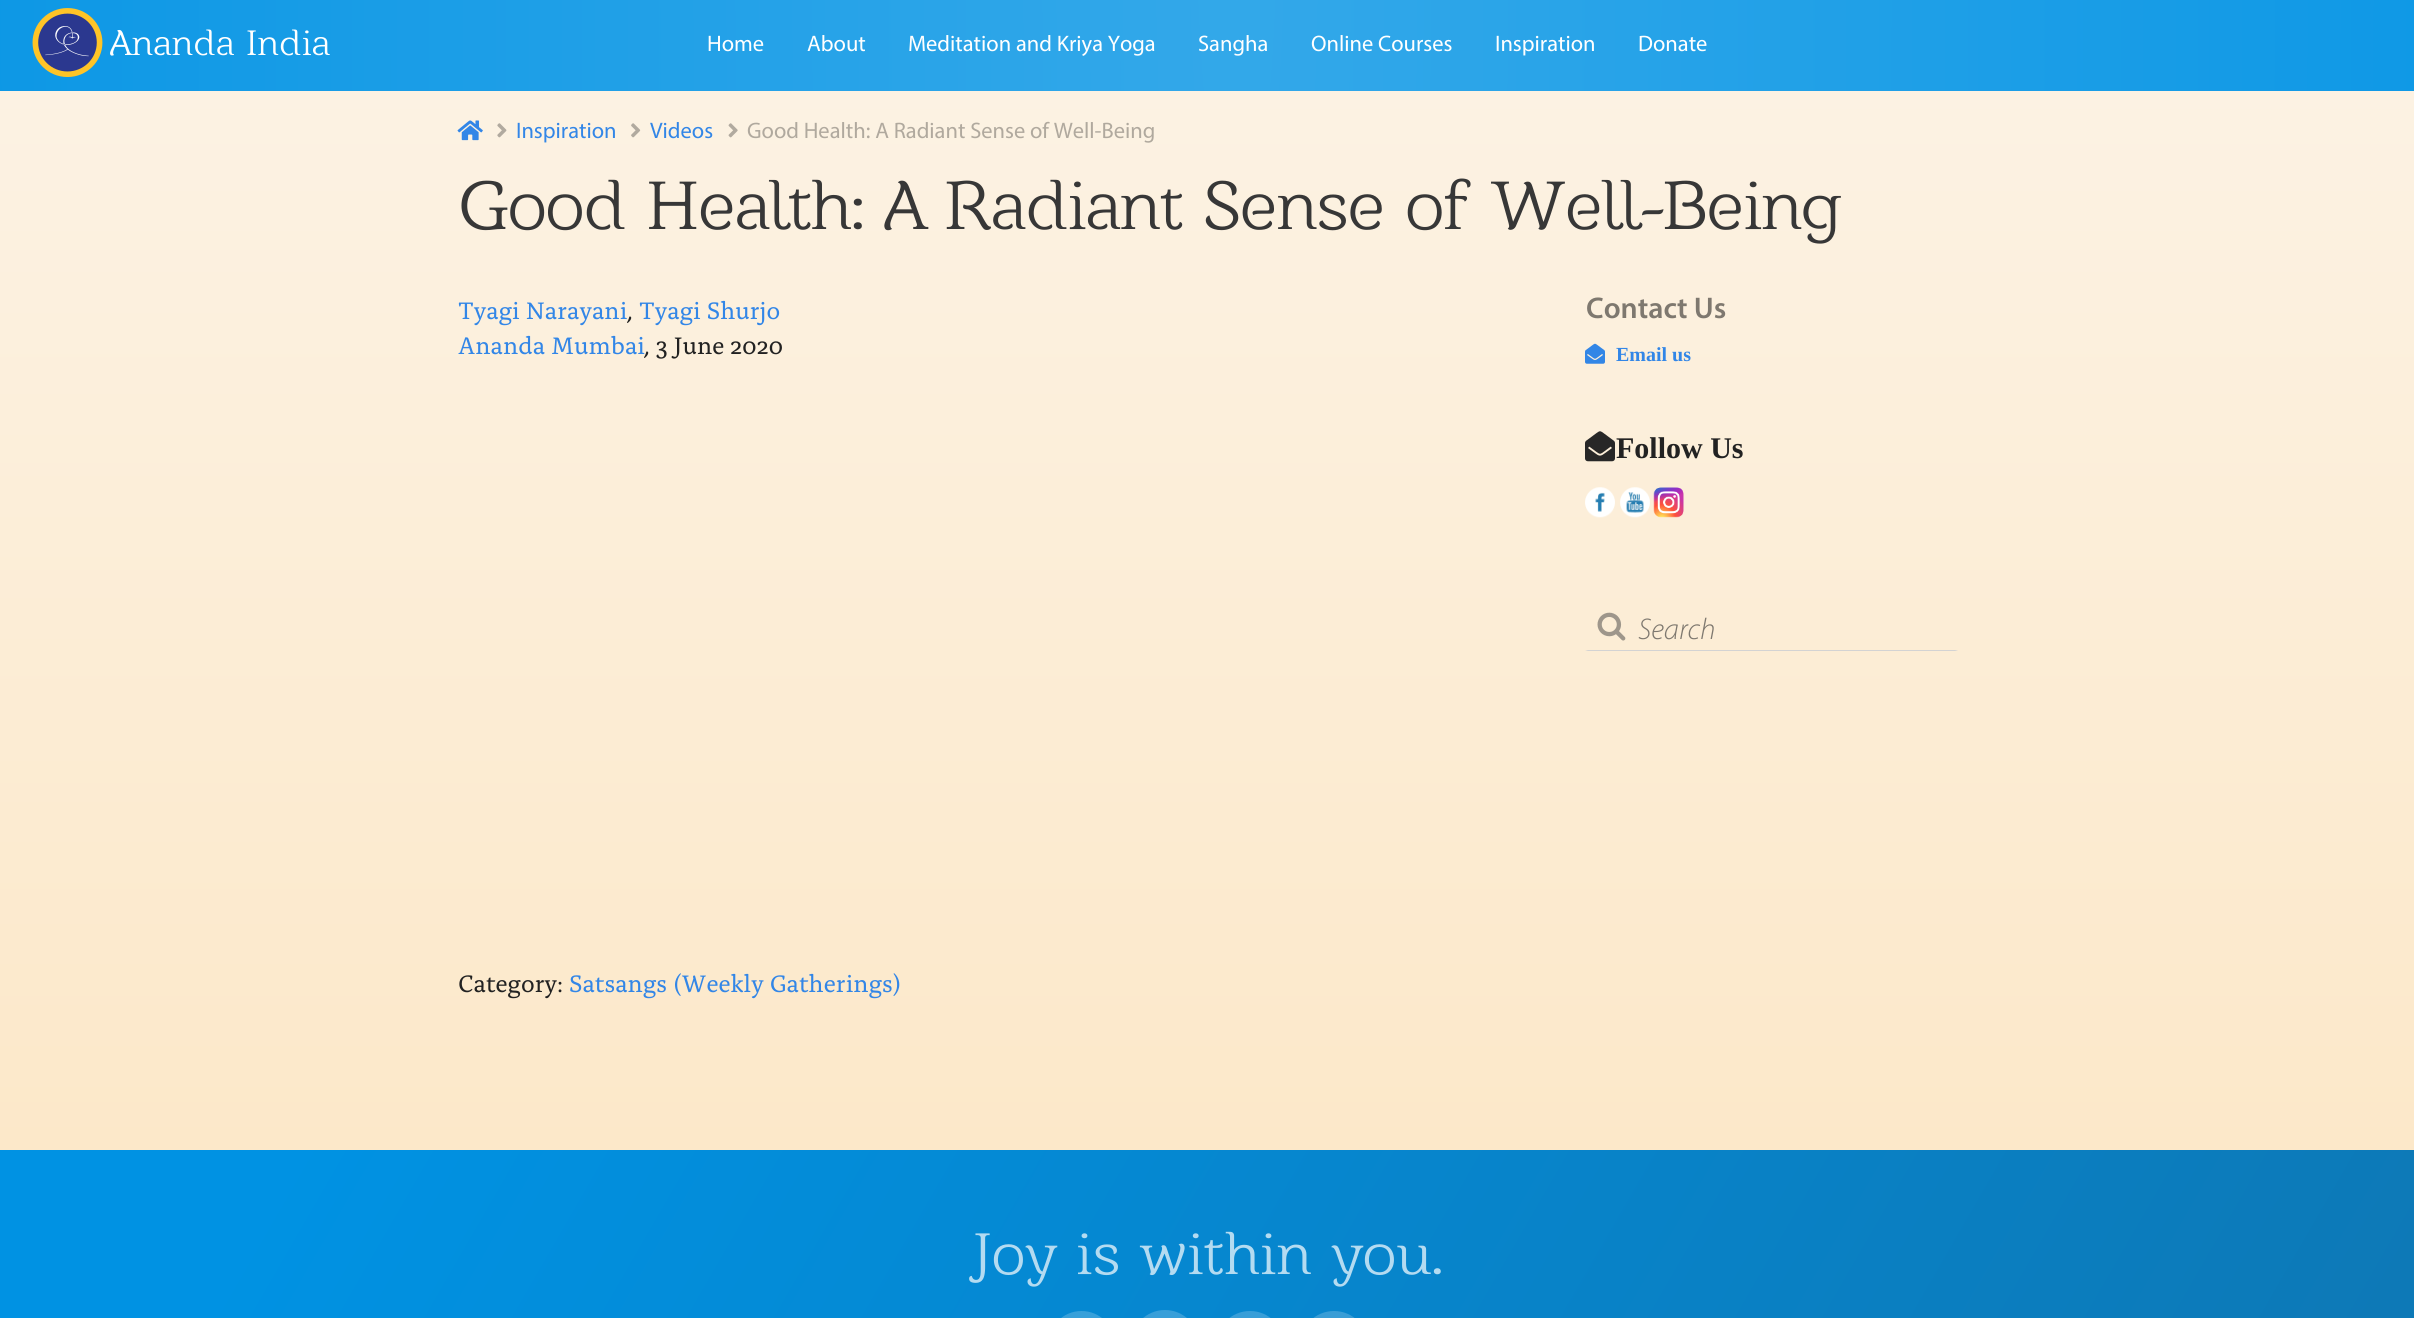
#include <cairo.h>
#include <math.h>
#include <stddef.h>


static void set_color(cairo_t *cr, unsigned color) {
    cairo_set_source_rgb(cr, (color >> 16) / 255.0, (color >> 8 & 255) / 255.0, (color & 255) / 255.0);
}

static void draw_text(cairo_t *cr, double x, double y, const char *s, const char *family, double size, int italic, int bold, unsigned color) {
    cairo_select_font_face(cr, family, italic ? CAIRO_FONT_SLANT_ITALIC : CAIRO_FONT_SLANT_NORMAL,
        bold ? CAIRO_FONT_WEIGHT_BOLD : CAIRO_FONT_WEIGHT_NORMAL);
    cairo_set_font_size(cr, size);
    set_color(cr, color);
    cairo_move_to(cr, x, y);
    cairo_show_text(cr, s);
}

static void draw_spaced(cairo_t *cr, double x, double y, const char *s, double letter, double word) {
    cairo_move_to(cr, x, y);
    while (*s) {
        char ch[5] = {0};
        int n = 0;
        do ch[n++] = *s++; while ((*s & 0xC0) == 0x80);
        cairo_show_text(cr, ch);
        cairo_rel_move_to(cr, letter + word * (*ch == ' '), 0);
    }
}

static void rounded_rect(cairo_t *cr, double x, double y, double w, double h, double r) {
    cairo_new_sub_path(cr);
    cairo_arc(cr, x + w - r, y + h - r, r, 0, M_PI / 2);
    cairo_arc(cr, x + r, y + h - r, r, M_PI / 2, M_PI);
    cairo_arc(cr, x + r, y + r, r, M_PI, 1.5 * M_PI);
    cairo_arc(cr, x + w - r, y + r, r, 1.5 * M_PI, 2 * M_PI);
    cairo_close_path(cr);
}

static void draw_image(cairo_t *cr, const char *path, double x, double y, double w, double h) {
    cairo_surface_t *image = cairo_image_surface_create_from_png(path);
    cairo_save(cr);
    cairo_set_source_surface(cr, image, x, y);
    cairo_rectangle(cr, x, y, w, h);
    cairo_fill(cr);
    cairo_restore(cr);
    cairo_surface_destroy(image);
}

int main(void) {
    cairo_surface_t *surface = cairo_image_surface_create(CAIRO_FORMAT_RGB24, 2414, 1318);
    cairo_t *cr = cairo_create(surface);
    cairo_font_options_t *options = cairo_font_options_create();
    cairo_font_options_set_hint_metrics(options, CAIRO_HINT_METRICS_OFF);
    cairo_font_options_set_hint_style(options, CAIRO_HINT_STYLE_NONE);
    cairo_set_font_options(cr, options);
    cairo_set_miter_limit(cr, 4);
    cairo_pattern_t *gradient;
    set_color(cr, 0xFFFFFF);
    cairo_paint(cr);
    gradient = cairo_pattern_create_radial(0, 0, 0, 0, 0, 1);
    cairo_pattern_set_matrix(gradient, &(cairo_matrix_t){1.0 / 1687, 0, 0, 1.0 / 14936, -1.0 * 1237 / 1687, -1.0 * -142 / 14936});
    cairo_pattern_add_color_stop_rgba(gradient, 0, 0.2, 0.659, 0.914, 1);
    cairo_pattern_add_color_stop_rgba(gradient, 1, 0, 0.573, 0.894, 1);
    cairo_set_source(cr, gradient);
    cairo_pattern_destroy(gradient);
    cairo_rectangle(cr, 0, 0, 2414, 91);
    cairo_fill(cr);
    draw_image(cr, "assets/img1.png", 32, 8, 71, 69);
    draw_text(cr, 110, 55, "Ananda India", "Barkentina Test", 36.25, 0, 0, 0xFFFFFF);
    draw_text(cr, 707, 51, "Home", "Myriad", 22.5, 0, 0, 0xFFFFFF);
    draw_text(cr, 807, 51, "About", "Myriad", 22.5, 0, 0, 0xFFFFFF);
    draw_text(cr, 908, 51, "Meditation and Kriya Yoga", "Myriad", 22.5, 0, 0, 0xFFFFFF);
    draw_text(cr, 1198, 51, "Sangha", "Myriad", 22.5, 0, 0, 0xFFFFFF);
    draw_text(cr, 1311, 51, "Online Courses", "Myriad", 22.5, 0, 0, 0xFFFFFF);
    draw_text(cr, 1495, 51, "Inspiration", "Myriad", 22.5, 0, 0, 0xFFFFFF);
    draw_text(cr, 1638, 51, "Donate", "Myriad", 22.5, 0, 0, 0xFFFFFF);
    gradient = cairo_pattern_create_linear(1208, 91, 1208, 1150);
    cairo_pattern_add_color_stop_rgba(gradient, 0, 0.988, 0.949, 0.89, 1);
    cairo_pattern_add_color_stop_rgba(gradient, 1, 0.988, 0.91, 0.788, 1);
    cairo_set_source(cr, gradient);
    cairo_pattern_destroy(gradient);
    cairo_rectangle(cr, 0, 91, 2414, 1059);
    cairo_fill(cr);
    draw_image(cr, "assets/img2.png", 457, 120, 26, 21);
    draw_image(cr, "assets/img3.png", 497, 123, 10, 15);
    draw_text(cr, 516, 138, "Inspiration", "Myriad", 22.5, 0, 0, 0x3286E7);
    draw_image(cr, "assets/img4.png", 631, 123, 10, 15);
    draw_text(cr, 650, 138, "Videos", "Myriad", 22.5, 0, 0, 0x3286E7);
    draw_image(cr, "assets/img5.png", 728, 123, 10, 15);
    draw_text(cr, 747, 138, "Good Health: A Radiant Sense of Well-Being", "Myriad", 22.5, 0, 0, 0xB0A99E);
    cairo_select_font_face(cr, "Barkentina Test", CAIRO_FONT_SLANT_NORMAL, CAIRO_FONT_WEIGHT_NORMAL);
    cairo_set_font_size(cr, 70);
    set_color(cr, 0x373737);
    draw_spaced(cr, 458, 229, "Good Health: A Radiant Sense of Well-Being", -1.5, 0);
    draw_text(cr, 458, 319, "Tyagi Narayani", "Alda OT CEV", 25, 0, 0, 0x3286E7);
    draw_text(cr, 627, 319, ",", "Alda OT CEV", 25, 0, 0, 0x222222);
    draw_text(cr, 639, 319, "Tyagi Shurjo", "Alda OT CEV", 25, 0, 0, 0x3286E7);
    draw_text(cr, 458, 354, "Ananda Mumbai", "Alda OT CEV", 25, 0, 0, 0x3286E7);
    draw_text(cr, 644, 354, ", 3 June 2020", "Alda OT CEV", 25, 0, 0, 0x222222);
    draw_text(cr, 458, 992, "Category:", "Alda OT CEV", 25, 0, 0, 0x222222);
    draw_text(cr, 569, 992, "Satsangs (Weekly Gatherings)", "Alda OT CEV", 25, 0, 0, 0x3286E7);
    draw_text(cr, 1586, 318, "Contact Us", "Myriad SemiBold", 30, 0, 0, 0x7E786F);
    draw_image(cr, "assets/img6.png", 1585, 343, 20, 21);
    draw_text(cr, 1616, 361, "Email us", "Liberation Serif", 20, 0, 1, 0x3286E7);
    draw_image(cr, "assets/img7.png", 1585, 431, 30, 31);
    draw_text(cr, 1616, 458, "Follow Us", "Liberation Serif", 30, 0, 1, 0x222222);
    draw_image(cr, "assets/img8.png", 1585, 487, 30, 31);
    draw_image(cr, "assets/img9.png", 1620, 487, 30, 31);
    draw_image(cr, "assets/img10.png", 1653, 487, 31, 31);
    draw_image(cr, "assets/img11.png", 1597, 612, 29, 29);
    set_color(cr, 0xD3D3D3);
    cairo_new_path(cr);
    cairo_move_to(cr, 1958, 651);
    cairo_line_to(cr, 1585, 651);
    cairo_line_to(cr, 1588, 650);
    cairo_line_to(cr, 1955, 650);
    cairo_close_path(cr);
    cairo_fill(cr);
    draw_text(cr, 1638, 639, "Search", "Myriad Light", 30, 1, 0, 0x7E786F);
    gradient = cairo_pattern_create_linear(209, 787, 2206, 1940);
    cairo_pattern_add_color_stop_rgba(gradient, 0.11, 0, 0.573, 0.89, 1);
    cairo_pattern_add_color_stop_rgba(gradient, 0.93, 0.051, 0.475, 0.718, 1);
    cairo_set_source(cr, gradient);
    cairo_pattern_destroy(gradient);
    cairo_rectangle(cr, 0, 1150, 2414, 168);
    cairo_fill(cr);
    draw_text(cr, 973, 1274, "Joy is within you.", "Barkentina Test", 60, 0, 0, 0xB4DBF1);
    set_color(cr, 0x37A0DA);
    rounded_rect(cr, 1048, 1311, 67, 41, 33.5);
    cairo_fill(cr);
    set_color(cr, 0x389FD9);
    rounded_rect(cr, 1131, 1310, 68, 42, 34);
    cairo_fill(cr);
    set_color(cr, 0x389ED8);
    rounded_rect(cr, 1216, 1311, 68, 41, 34);
    cairo_fill(cr);
    set_color(cr, 0x399DD6);
    rounded_rect(cr, 1300, 1311, 68, 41, 34);
    cairo_fill(cr);
    cairo_surface_write_to_png(surface, "output.png");
    cairo_font_options_destroy(options);
    cairo_destroy(cr);
    cairo_surface_destroy(surface);
    return 0;
}
